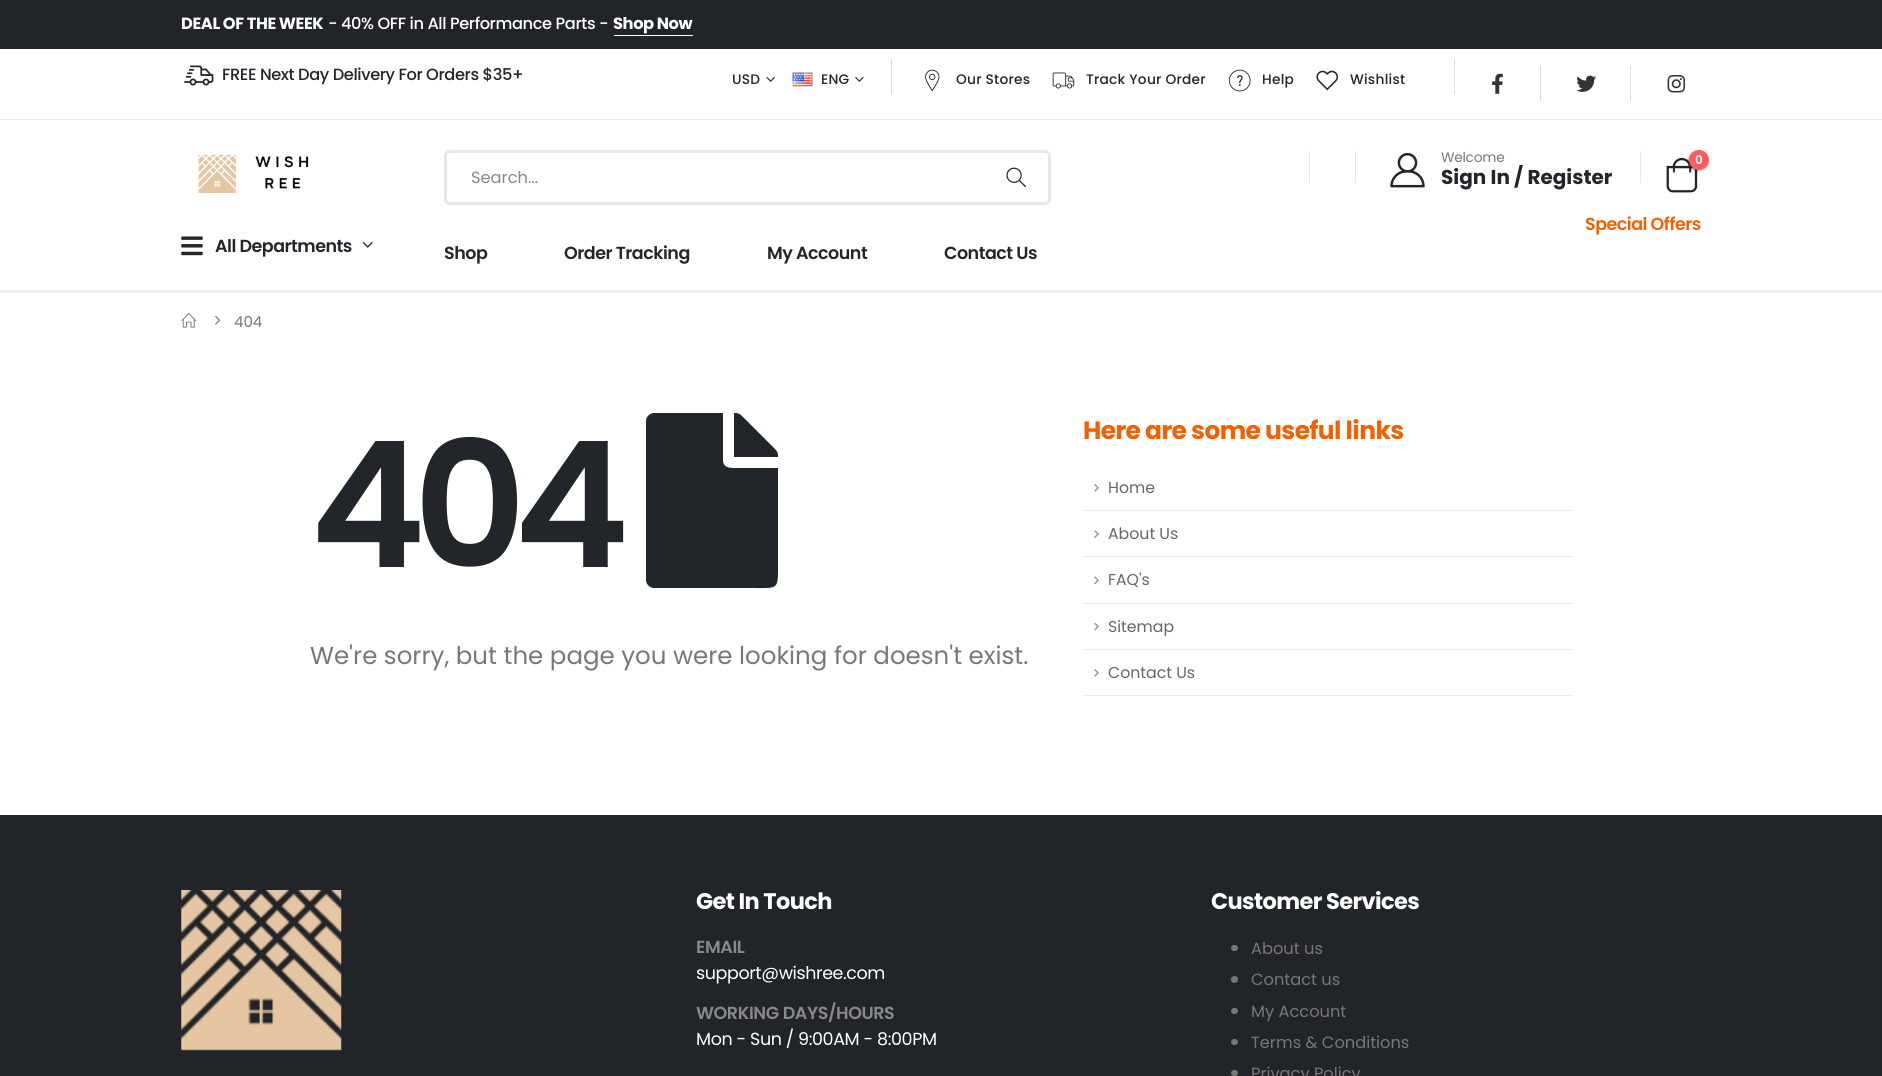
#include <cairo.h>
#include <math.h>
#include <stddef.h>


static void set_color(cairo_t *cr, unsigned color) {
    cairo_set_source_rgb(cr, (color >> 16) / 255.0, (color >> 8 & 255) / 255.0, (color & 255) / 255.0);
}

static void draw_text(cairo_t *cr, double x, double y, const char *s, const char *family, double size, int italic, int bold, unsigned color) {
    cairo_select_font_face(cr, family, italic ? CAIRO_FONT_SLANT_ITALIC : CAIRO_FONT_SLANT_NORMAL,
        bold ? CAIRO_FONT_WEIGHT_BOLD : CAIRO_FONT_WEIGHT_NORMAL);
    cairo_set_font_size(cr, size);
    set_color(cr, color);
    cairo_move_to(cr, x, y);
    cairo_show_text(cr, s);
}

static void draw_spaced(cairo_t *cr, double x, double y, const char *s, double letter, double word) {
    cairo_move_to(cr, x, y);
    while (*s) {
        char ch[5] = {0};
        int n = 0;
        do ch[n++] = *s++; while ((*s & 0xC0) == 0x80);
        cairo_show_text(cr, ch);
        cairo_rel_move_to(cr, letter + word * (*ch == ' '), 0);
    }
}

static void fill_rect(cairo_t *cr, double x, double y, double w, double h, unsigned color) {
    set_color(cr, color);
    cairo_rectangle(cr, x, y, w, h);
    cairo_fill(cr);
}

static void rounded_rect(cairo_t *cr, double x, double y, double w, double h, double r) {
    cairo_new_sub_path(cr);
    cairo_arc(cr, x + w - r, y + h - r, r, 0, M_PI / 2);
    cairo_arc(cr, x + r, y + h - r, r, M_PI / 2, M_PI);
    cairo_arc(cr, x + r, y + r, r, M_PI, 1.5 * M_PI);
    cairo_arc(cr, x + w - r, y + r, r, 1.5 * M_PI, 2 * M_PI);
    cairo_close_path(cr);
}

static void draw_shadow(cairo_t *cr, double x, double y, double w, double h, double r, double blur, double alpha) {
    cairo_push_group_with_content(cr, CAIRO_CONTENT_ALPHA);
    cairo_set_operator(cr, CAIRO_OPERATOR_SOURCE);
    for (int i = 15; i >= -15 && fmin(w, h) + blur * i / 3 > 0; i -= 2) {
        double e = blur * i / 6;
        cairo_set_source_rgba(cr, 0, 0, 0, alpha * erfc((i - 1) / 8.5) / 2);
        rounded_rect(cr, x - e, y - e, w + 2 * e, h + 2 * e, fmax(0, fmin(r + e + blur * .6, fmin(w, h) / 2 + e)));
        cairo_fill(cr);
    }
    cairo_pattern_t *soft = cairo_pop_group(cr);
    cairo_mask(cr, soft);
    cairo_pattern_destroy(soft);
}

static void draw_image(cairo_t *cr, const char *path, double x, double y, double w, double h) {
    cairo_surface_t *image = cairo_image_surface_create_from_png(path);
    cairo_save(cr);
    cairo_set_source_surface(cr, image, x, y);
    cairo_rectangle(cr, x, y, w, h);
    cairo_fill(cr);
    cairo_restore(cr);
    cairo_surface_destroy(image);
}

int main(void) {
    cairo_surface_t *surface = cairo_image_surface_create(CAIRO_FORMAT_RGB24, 1882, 1076);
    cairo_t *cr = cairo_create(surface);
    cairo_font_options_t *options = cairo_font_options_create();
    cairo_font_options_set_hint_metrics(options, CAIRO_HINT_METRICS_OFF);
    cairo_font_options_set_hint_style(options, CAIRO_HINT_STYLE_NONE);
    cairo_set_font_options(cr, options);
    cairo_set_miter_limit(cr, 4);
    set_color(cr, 0xFFFFFF);
    cairo_paint(cr);
    cairo_save(cr);
    cairo_rectangle(cr, 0, 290, 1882, 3);
    cairo_clip(cr);
    set_color(cr, 0x000000);
    draw_shadow(cr, 0, 3, 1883, 290, 0, 1, 0.06);
    cairo_restore(cr);
    fill_rect(cr, 0, 0, 1882, 49, 0x212529);
    cairo_select_font_face(cr, "Poppins", CAIRO_FONT_SLANT_NORMAL, CAIRO_FONT_WEIGHT_BOLD);
    cairo_set_font_size(cr, 16.25);
    set_color(cr, 0xFFFFFF);
    draw_spaced(cr, 181, 29, "DEAL OF THE WEEK", -0.4, 0);
    cairo_select_font_face(cr, "Poppins Medium", CAIRO_FONT_SLANT_NORMAL, CAIRO_FONT_WEIGHT_NORMAL);
    draw_spaced(cr, 328, 29, "- 40% OFF in All Performance Parts -", -0.4, 0);
    fill_rect(cr, 614, 35, 79, 1, 0xFFFFFF);
    cairo_select_font_face(cr, "Poppins", CAIRO_FONT_SLANT_NORMAL, CAIRO_FONT_WEIGHT_BOLD);
    draw_spaced(cr, 613, 29, "Shop Now", -0.4, 0);
    fill_rect(cr, 0, 119, 1882, 1, 0xE7E7E7);
    draw_image(cr, "assets/img1.png", 184, 65, 30, 21);
    cairo_select_font_face(cr, "Poppins Medium", CAIRO_FONT_SLANT_NORMAL, CAIRO_FONT_WEIGHT_NORMAL);
    set_color(cr, 0x222529);
    draw_spaced(cr, 222, 80, "FREE Next Day Delivery For Orders $35+", -0.4, 0);
    cairo_set_font_size(cr, 13.75);
    draw_spaced(cr, 732, 84, "USD", 0.25, 0);
    draw_image(cr, "assets/img2.png", 766, 77, 9, 5);
    draw_image(cr, "assets/img3.png", 792, 72, 21, 15);
    draw_spaced(cr, 821, 84, "ENG", 0.25, 0);
    draw_image(cr, "assets/img4.png", 855, 77, 9, 5);
    fill_rect(cr, 891, 59, 1, 35, 0xDADCDD);
    draw_image(cr, "assets/img5.png", 925, 69, 15, 23);
    set_color(cr, 0x222529);
    draw_spaced(cr, 956, 84, "Our Stores", 0.25, 0);
    draw_image(cr, "assets/img6.png", 1052, 72, 23, 17);
    draw_spaced(cr, 1086, 84, "Track Your Order", 0.25, 0);
    draw_image(cr, "assets/img7.png", 1228, 69, 23, 23);
    draw_spaced(cr, 1262, 84, "Help", 0.25, 0);
    draw_image(cr, "assets/img8.png", 1316, 70, 22, 21);
    draw_spaced(cr, 1350, 84, "Wishlist", 0.25, 0);
    fill_rect(cr, 1454, 59, 1, 35, 0xDADCDD);
    draw_image(cr, "assets/img9.png", 1492, 73, 11, 21);
    fill_rect(cr, 1540, 66, 1, 35, 0xDADCDD);
    draw_image(cr, "assets/img10.png", 1576, 75, 21, 17);
    fill_rect(cr, 1630, 66, 1, 35, 0xDADCDD);
    draw_image(cr, "assets/img11.png", 1667, 75, 19, 18);
    draw_image(cr, "assets/img12.png", 198, 154, 111, 39);
    fill_rect(cr, 1309, 151, 1, 32, 0xE7E7E7);
    fill_rect(cr, 1355, 151, 1, 32, 0xE7E7E7);
    draw_image(cr, "assets/img13.png", 1390, 152, 35, 36);
    cairo_select_font_face(cr, "Poppins", CAIRO_FONT_SLANT_NORMAL, CAIRO_FONT_WEIGHT_NORMAL);
    set_color(cr, 0x777777);
    draw_spaced(cr, 1441, 162, "Welcome", -0.25, 0);
    draw_text(cr, 1441, 184, "Sign In / Register", "Poppins", 20, 0, 1, 0x222529);
    fill_rect(cr, 1640, 151, 1, 32, 0xE7E7E7);
    draw_image(cr, "assets/img14.png", 1666, 157, 32, 36);
    set_color(cr, 0x000000);
    draw_shadow(cr, 1688, 151, 20, 20, 10, 1, 0.3);
    set_color(cr, 0xFF5B5B);
    cairo_arc(cr, 1699, 160, 10, 0, 2 * M_PI);
    cairo_fill(cr);
    draw_text(cr, 1695, 164, "0", "Poppins SemiBold", 12, 0, 0, 0xFFFFFF);
    rounded_rect(cr, 445.5, 151.5, 604, 52, 4.5);
    set_color(cr, 0xE7E7E7);
    cairo_set_line_width(cr, 3);
    cairo_stroke(cr);
    draw_text(cr, 471, 183, "Search...", "Poppins", 16.25, 0, 0, 0x888888);
    draw_image(cr, "assets/img15.png", 1006, 167, 20, 21);
    cairo_select_font_face(cr, "Poppins SemiBold", CAIRO_FONT_SLANT_NORMAL, CAIRO_FONT_WEIGHT_NORMAL);
    cairo_set_font_size(cr, 17.5);
    set_color(cr, 0xF26100);
    draw_spaced(cr, 1585, 230, "Special Offers", -0.5, 0);
    draw_image(cr, "assets/img16.png", 181, 236, 22, 20);
    set_color(cr, 0x222529);
    draw_spaced(cr, 215, 252, "All Departments", -0.5, 0);
    draw_image(cr, "assets/img17.png", 362, 242, 11, 6);
    draw_spaced(cr, 444, 259, "Shop", -0.5, 0);
    draw_spaced(cr, 564, 259, "Order Tracking", -0.5, 0);
    draw_spaced(cr, 767, 259, "My Account", -0.5, 0);
    draw_spaced(cr, 944, 259, "Contact Us", -0.5, 0);
    draw_image(cr, "assets/img18.png", 181, 313, 16, 15);
    draw_image(cr, "assets/img19.png", 215, 315, 6, 10);
    draw_text(cr, 234, 327, "404", "Poppins", 15, 0, 0, 0x777777);
    cairo_select_font_face(cr, "Poppins SemiBold", CAIRO_FONT_SLANT_NORMAL, CAIRO_FONT_WEIGHT_NORMAL);
    cairo_set_font_size(cr, 175);
    set_color(cr, 0x222529);
    draw_spaced(cr, 310, 567, "404", -12.5, 0);
    cairo_new_path(cr);
    cairo_move_to(cr, 723, 460);
    cairo_curve_to(cr, 723, 469, 732, 468, 739, 468);
    cairo_line_to(cr, 778, 468);
    cairo_line_to(cr, 778, 561);
    cairo_curve_to(cr, 778, 591, 780, 588, 750, 588);
    cairo_line_to(cr, 653, 588);
    cairo_curve_to(cr, 649, 587, 646, 584, 646, 580);
    cairo_line_to(cr, 646, 421);
    cairo_curve_to(cr, 646, 417, 649, 414, 653, 413);
    cairo_line_to(cr, 723, 413);
    cairo_close_path(cr);
    cairo_move_to(cr, 778, 455);
    cairo_line_to(cr, 778, 457);
    cairo_line_to(cr, 734, 457);
    cairo_line_to(cr, 734, 413);
    cairo_line_to(cr, 736, 413);
    cairo_curve_to(cr, 738, 413, 740, 414, 742, 416);
    cairo_line_to(cr, 775, 449);
    cairo_curve_to(cr, 777, 451, 778, 453, 778, 455);
    cairo_close_path(cr);
    cairo_fill(cr);
    draw_text(cr, 310, 664, "We're sorry, but the page you were looking for doesn't exist.", "Poppins", 24.5, 0, 0, 0x777777);
    cairo_select_font_face(cr, "Poppins", CAIRO_FONT_SLANT_NORMAL, CAIRO_FONT_WEIGHT_BOLD);
    cairo_set_font_size(cr, 25);
    set_color(cr, 0xF26100);
    draw_spaced(cr, 1083, 439, "Here are some useful links", -0.6, 0);
    fill_rect(cr, 1083, 510, 490, 1, 0xEBEBEB);
    draw_image(cr, "assets/img20.png", 1094, 484, 5, 8);
    draw_text(cr, 1108, 493, "Home", "Poppins", 15.75, 0, 0, 0x666666);
    fill_rect(cr, 1083, 556, 490, 1, 0xEBEBEB);
    draw_image(cr, "assets/img21.png", 1094, 530, 5, 8);
    draw_text(cr, 1108, 539, "About Us", "Poppins", 15.75, 0, 0, 0x666666);
    fill_rect(cr, 1083, 603, 490, 1, 0xEBEBEB);
    draw_image(cr, "assets/img22.png", 1094, 576, 5, 9);
    draw_text(cr, 1108, 585, "FAQ's", "Poppins", 15.75, 0, 0, 0x666666);
    fill_rect(cr, 1083, 649, 490, 1, 0xEBEBEB);
    draw_image(cr, "assets/img23.png", 1094, 622, 5, 9);
    draw_text(cr, 1108, 632, "Sitemap", "Poppins", 15.75, 0, 0, 0x666666);
    fill_rect(cr, 1083, 695, 490, 1, 0xEBEBEB);
    draw_image(cr, "assets/img20.png", 1094, 669, 5, 8);
    draw_text(cr, 1108, 678, "Contact Us", "Poppins", 15.75, 0, 0, 0x666666);
    fill_rect(cr, 0, 815, 1882, 261, 0x212529);
    draw_image(cr, "assets/img24.png", 181, 890, 161, 161);
    cairo_select_font_face(cr, "Poppins", CAIRO_FONT_SLANT_NORMAL, CAIRO_FONT_WEIGHT_BOLD);
    cairo_set_font_size(cr, 22.5);
    set_color(cr, 0xFFFFFF);
    draw_spaced(cr, 696, 909, "Get In Touch", -0.6, 0);
    cairo_select_font_face(cr, "Poppins SemiBold", CAIRO_FONT_SLANT_NORMAL, CAIRO_FONT_WEIGHT_NORMAL);
    cairo_set_font_size(cr, 17.5);
    set_color(cr, 0x888888);
    draw_spaced(cr, 696, 953, "EMAIL", -0.4, 0);
    cairo_select_font_face(cr, "Poppins", CAIRO_FONT_SLANT_NORMAL, CAIRO_FONT_WEIGHT_NORMAL);
    set_color(cr, 0xFFFFFF);
    draw_spaced(cr, 696, 979, "support@wishree.com", -0.4, 0);
    cairo_select_font_face(cr, "Poppins SemiBold", CAIRO_FONT_SLANT_NORMAL, CAIRO_FONT_WEIGHT_NORMAL);
    set_color(cr, 0x888888);
    draw_spaced(cr, 696, 1019, "WORKING DAYS/HOURS", -0.4, 0);
    cairo_select_font_face(cr, "Poppins", CAIRO_FONT_SLANT_NORMAL, CAIRO_FONT_WEIGHT_NORMAL);
    set_color(cr, 0xFFFFFF);
    draw_spaced(cr, 696, 1045, "Mon - Sun / 9:00AM - 8:00PM", -0.4, 0);
    cairo_select_font_face(cr, "Poppins", CAIRO_FONT_SLANT_NORMAL, CAIRO_FONT_WEIGHT_BOLD);
    cairo_set_font_size(cr, 22.5);
    draw_spaced(cr, 1211, 909, "Customer Services", -0.6, 0);
    set_color(cr, 0x777777);
    rounded_rect(cr, 1231, 945, 7, 6, 3);
    cairo_fill(cr);
    draw_text(cr, 1251, 954, "About us", "Poppins", 16.25, 0, 0, 0x777777);
    cairo_new_path(cr);
    cairo_arc(cr, 1234.5, 979.5, 3.5, 0, 2 * M_PI);
    cairo_fill(cr);
    draw_text(cr, 1251, 985, "Contact us", "Poppins", 16.25, 0, 0, 0x777777);
    rounded_rect(cr, 1231, 1008, 7, 6, 3);
    cairo_fill(cr);
    draw_text(cr, 1251, 1017, "My Account", "Poppins", 16.25, 0, 0, 0x777777);
    rounded_rect(cr, 1231, 1039, 7, 6, 3);
    cairo_fill(cr);
    draw_text(cr, 1251, 1048, "Terms & Conditions", "Poppins", 16.25, 0, 0, 0x777777);
    rounded_rect(cr, 1231, 1070, 7, 6, 3);
    cairo_fill(cr);
    draw_text(cr, 1251, 1079, "Privacy Policy", "Poppins", 16.25, 0, 0, 0x777777);
    cairo_surface_write_to_png(surface, "output.png");
    cairo_font_options_destroy(options);
    cairo_destroy(cr);
    cairo_surface_destroy(surface);
    return 0;
}
